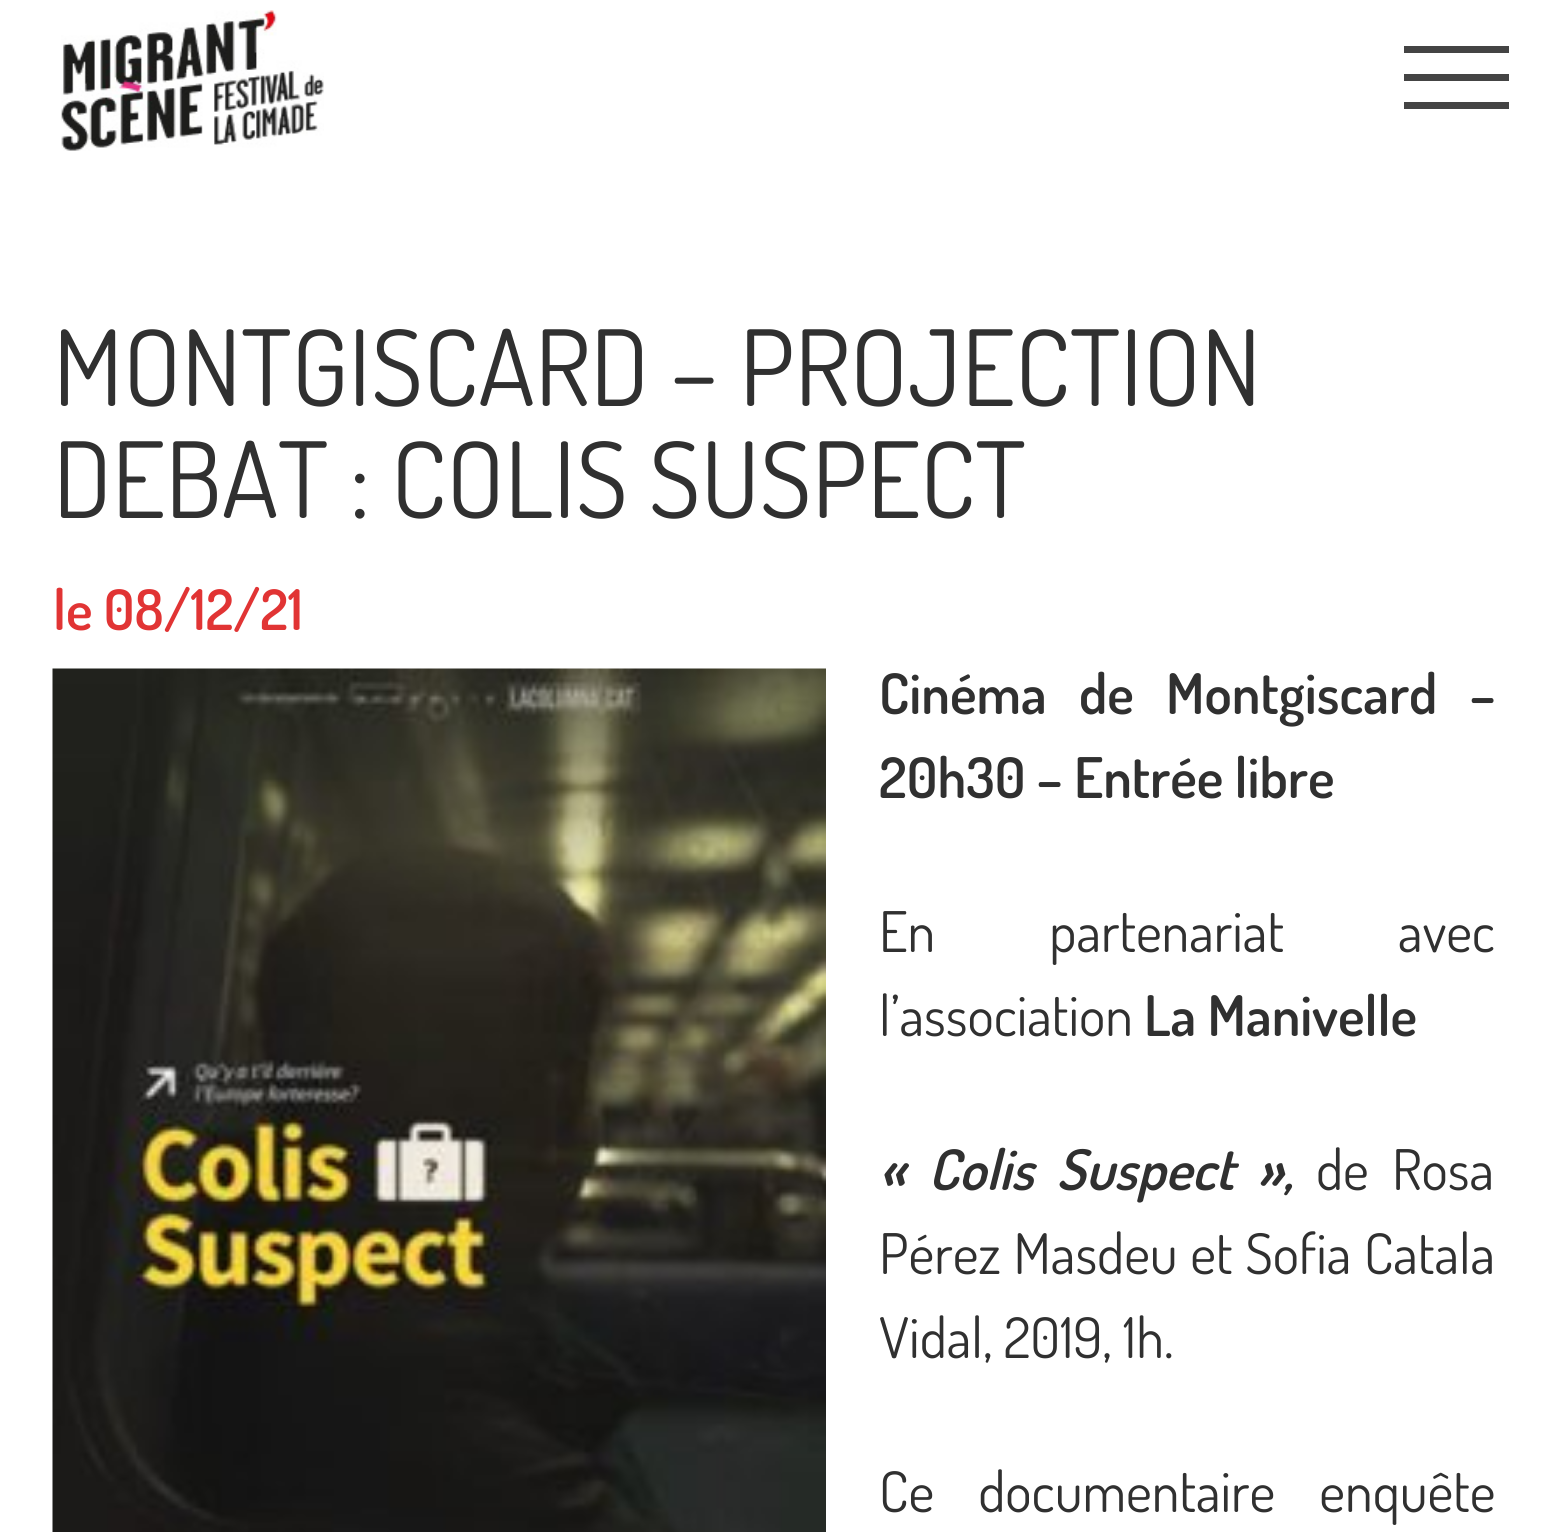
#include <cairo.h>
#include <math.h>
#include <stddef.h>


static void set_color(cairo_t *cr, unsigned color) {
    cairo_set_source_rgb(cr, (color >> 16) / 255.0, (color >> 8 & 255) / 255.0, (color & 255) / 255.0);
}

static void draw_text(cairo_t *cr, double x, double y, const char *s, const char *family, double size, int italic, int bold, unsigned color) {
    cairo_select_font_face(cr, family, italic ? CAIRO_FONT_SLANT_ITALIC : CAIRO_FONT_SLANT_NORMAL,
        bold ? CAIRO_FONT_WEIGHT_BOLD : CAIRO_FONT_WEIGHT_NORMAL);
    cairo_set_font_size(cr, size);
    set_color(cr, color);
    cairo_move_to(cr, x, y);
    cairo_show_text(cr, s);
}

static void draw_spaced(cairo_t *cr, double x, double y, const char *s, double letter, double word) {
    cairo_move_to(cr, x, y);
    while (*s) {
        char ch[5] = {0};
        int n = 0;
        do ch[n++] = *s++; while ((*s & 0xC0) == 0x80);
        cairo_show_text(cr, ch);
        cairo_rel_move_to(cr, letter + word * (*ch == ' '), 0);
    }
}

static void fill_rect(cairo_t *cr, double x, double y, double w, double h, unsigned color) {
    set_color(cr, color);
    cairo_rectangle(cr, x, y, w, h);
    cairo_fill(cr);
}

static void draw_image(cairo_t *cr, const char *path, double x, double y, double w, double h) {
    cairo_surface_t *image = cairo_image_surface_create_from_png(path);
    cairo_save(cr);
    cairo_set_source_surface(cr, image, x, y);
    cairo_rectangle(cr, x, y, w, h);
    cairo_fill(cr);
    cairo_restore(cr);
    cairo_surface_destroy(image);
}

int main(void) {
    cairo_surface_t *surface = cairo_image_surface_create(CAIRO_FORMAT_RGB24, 1545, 1532);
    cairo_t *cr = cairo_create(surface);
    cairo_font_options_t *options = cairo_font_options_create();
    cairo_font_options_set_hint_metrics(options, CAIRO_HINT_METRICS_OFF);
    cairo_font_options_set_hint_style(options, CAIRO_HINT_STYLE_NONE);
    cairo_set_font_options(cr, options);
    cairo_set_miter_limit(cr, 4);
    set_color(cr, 0xFFFFFF);
    cairo_paint(cr);
    draw_image(cr, "assets/img1.png", 61, 10, 263, 141);
    fill_rect(cr, 1404, 74, 105, 7, 0x444444);
    fill_rect(cr, 1404, 46, 105, 7, 0x444444);
    fill_rect(cr, 1404, 102, 105, 7, 0x444444);
    draw_text(cr, 53, 406, "MONTGISCARD – PROJECTION", "Dosis", 105, 0, 0, 0x303030);
    draw_text(cr, 53, 518, "DEBAT : COLIS SUSPECT", "Dosis", 105, 0, 0, 0x303030);
    draw_text(cr, 53, 630, "le 08/12/21", "Dosis SemiBold", 56, 0, 0, 0xE13434);
    draw_image(cr, "assets/img2.png", 52, 668, 774, 864);
    set_color(cr, 0x303030);
    draw_spaced(cr, 879, 714, "Cinéma de Montgiscard –", 0, 21);
    draw_text(cr, 879, 798, "20h30 – Entrée libre", "Dosis SemiBold", 56, 0, 0, 0x303030);
    cairo_select_font_face(cr, "Dosis", CAIRO_FONT_SLANT_NORMAL, CAIRO_FONT_WEIGHT_NORMAL);
    draw_spaced(cr, 879, 952, "En partenariat avec", 0, 103);
    draw_text(cr, 879, 1036, "l’association", "Dosis", 56, 0, 0, 0x303030);
    draw_text(cr, 1144, 1036, "La Manivelle", "Dosis SemiBold", 56, 0, 0, 0x303030);
    cairo_select_font_face(cr, "Dosis SemiBold", CAIRO_FONT_SLANT_ITALIC, CAIRO_FONT_WEIGHT_NORMAL);
    draw_spaced(cr, 879, 1190, "« Colis Suspect »,", 0, 12);
    cairo_select_font_face(cr, "Dosis", CAIRO_FONT_SLANT_NORMAL, CAIRO_FONT_WEIGHT_NORMAL);
    draw_spaced(cr, 1316, 1190, "de Rosa", 0, 12);
    draw_spaced(cr, 879, 1274, "Pérez Masdeu et Sofia Catala", 0, 1.5);
    draw_text(cr, 879, 1358, "Vidal, 2019, 1h.", "Dosis", 56, 0, 0, 0x303030);
    draw_spaced(cr, 879, 1512, "Ce documentaire enquête", 0, 33);
    cairo_surface_write_to_png(surface, "output.png");
    cairo_font_options_destroy(options);
    cairo_destroy(cr);
    cairo_surface_destroy(surface);
    return 0;
}
